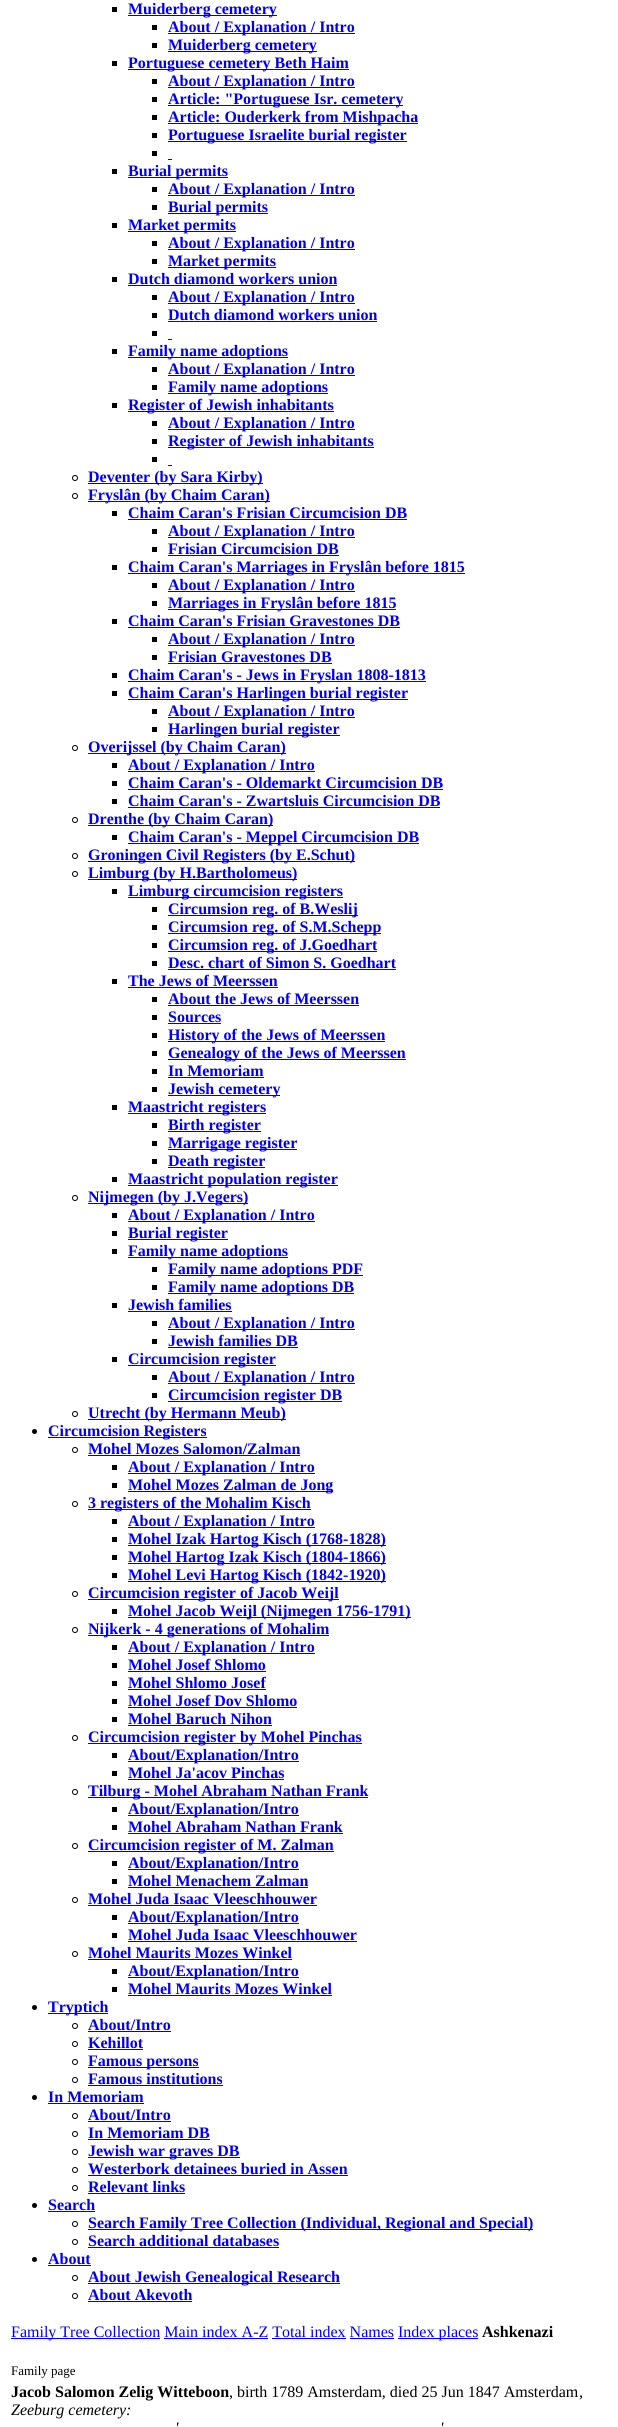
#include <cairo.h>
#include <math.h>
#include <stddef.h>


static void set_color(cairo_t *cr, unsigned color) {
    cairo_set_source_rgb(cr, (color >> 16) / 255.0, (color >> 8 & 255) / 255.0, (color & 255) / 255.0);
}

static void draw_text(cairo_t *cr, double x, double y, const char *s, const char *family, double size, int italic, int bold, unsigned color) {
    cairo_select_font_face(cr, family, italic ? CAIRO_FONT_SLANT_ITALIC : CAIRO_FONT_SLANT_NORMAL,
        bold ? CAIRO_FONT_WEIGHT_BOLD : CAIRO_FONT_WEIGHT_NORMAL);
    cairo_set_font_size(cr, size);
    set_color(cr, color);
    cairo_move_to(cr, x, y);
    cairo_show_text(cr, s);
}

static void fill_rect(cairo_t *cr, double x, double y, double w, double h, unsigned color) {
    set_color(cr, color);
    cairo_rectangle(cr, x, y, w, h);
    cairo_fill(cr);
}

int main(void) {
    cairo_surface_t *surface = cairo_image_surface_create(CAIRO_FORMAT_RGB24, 618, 2427);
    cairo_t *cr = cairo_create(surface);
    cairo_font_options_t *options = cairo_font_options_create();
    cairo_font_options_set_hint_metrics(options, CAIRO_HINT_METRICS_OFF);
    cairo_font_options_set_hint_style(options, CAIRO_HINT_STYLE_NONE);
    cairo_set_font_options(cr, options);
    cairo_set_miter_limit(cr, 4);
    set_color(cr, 0xFFFFFF);
    cairo_paint(cr);
    fill_rect(cr, 112, 7, 5, 5, 0x000000);
    fill_rect(cr, 128, 15, 149, 1, 0x0000EE);
    draw_text(cr, 128, 14, "Muiderberg cemetery", "Liberation Serif", 16, 0, 1, 0x0000EE);
    fill_rect(cr, 152, 25, 5, 5, 0x000000);
    fill_rect(cr, 168, 33, 187, 1, 0x0000EE);
    draw_text(cr, 168, 32, "About / Explanation / Intro", "Liberation Serif", 16, 0, 1, 0x0000EE);
    fill_rect(cr, 152, 43, 5, 5, 0x000000);
    fill_rect(cr, 168, 51, 149, 1, 0x0000EE);
    draw_text(cr, 168, 50, "Muiderberg cemetery", "Liberation Serif", 16, 0, 1, 0x0000EE);
    fill_rect(cr, 112, 61, 5, 5, 0x000000);
    fill_rect(cr, 128, 69, 221, 1, 0x0000EE);
    draw_text(cr, 128, 68, "Portuguese cemetery Beth Haim", "Liberation Serif", 16, 0, 1, 0x0000EE);
    fill_rect(cr, 152, 79, 5, 5, 0x000000);
    fill_rect(cr, 168, 87, 187, 1, 0x0000EE);
    draw_text(cr, 168, 86, "About / Explanation / Intro", "Liberation Serif", 16, 0, 1, 0x0000EE);
    fill_rect(cr, 152, 97, 5, 5, 0x000000);
    fill_rect(cr, 168, 105, 235, 1, 0x0000EE);
    draw_text(cr, 168, 104, "Article: \"Portuguese Isr. cemetery", "Liberation Serif", 16, 0, 1, 0x0000EE);
    fill_rect(cr, 152, 115, 5, 5, 0x000000);
    fill_rect(cr, 168, 123, 250, 1, 0x0000EE);
    draw_text(cr, 168, 122, "Article: Ouderkerk from Mishpacha", "Liberation Serif", 16, 0, 1, 0x0000EE);
    fill_rect(cr, 152, 133, 5, 5, 0x000000);
    fill_rect(cr, 168, 141, 239, 1, 0x0000EE);
    draw_text(cr, 168, 140, "Portuguese Israelite burial register", "Liberation Serif", 16, 0, 1, 0x0000EE);
    fill_rect(cr, 152, 151, 5, 5, 0x000000);
    fill_rect(cr, 168, 159, 4, 1, 0x0000EE);
    fill_rect(cr, 112, 169, 5, 5, 0x000000);
    fill_rect(cr, 128, 177, 100, 1, 0x0000EE);
    draw_text(cr, 128, 176, "Burial permits", "Liberation Serif", 16, 0, 1, 0x0000EE);
    fill_rect(cr, 152, 187, 5, 5, 0x000000);
    fill_rect(cr, 168, 195, 187, 1, 0x0000EE);
    draw_text(cr, 168, 194, "About / Explanation / Intro", "Liberation Serif", 16, 0, 1, 0x0000EE);
    fill_rect(cr, 152, 205, 5, 5, 0x000000);
    fill_rect(cr, 168, 213, 100, 1, 0x0000EE);
    draw_text(cr, 168, 212, "Burial permits", "Liberation Serif", 16, 0, 1, 0x0000EE);
    fill_rect(cr, 112, 223, 5, 5, 0x000000);
    fill_rect(cr, 128, 231, 108, 1, 0x0000EE);
    draw_text(cr, 128, 230, "Market permits", "Liberation Serif", 16, 0, 1, 0x0000EE);
    fill_rect(cr, 152, 241, 5, 5, 0x000000);
    fill_rect(cr, 168, 249, 187, 1, 0x0000EE);
    draw_text(cr, 168, 248, "About / Explanation / Intro", "Liberation Serif", 16, 0, 1, 0x0000EE);
    fill_rect(cr, 152, 259, 5, 5, 0x000000);
    fill_rect(cr, 168, 267, 108, 1, 0x0000EE);
    draw_text(cr, 168, 266, "Market permits", "Liberation Serif", 16, 0, 1, 0x0000EE);
    fill_rect(cr, 112, 277, 5, 5, 0x000000);
    draw_text(cr, 128, 284, "Dutch diamond workers union", "Liberation Serif", 16, 0, 1, 0x0000EE);
    fill_rect(cr, 128, 285, 209, 1, 0x0000EE);
    fill_rect(cr, 152, 295, 5, 5, 0x000000);
    fill_rect(cr, 168, 303, 187, 1, 0x0000EE);
    draw_text(cr, 168, 302, "About / Explanation / Intro", "Liberation Serif", 16, 0, 1, 0x0000EE);
    fill_rect(cr, 152, 313, 5, 5, 0x000000);
    draw_text(cr, 168, 320, "Dutch diamond workers union", "Liberation Serif", 16, 0, 1, 0x0000EE);
    fill_rect(cr, 168, 321, 209, 1, 0x0000EE);
    fill_rect(cr, 152, 331, 5, 5, 0x000000);
    fill_rect(cr, 168, 339, 4, 1, 0x0000EE);
    fill_rect(cr, 112, 349, 5, 5, 0x000000);
    fill_rect(cr, 128, 357, 160, 1, 0x0000EE);
    draw_text(cr, 128, 356, "Family name adoptions", "Liberation Serif", 16, 0, 1, 0x0000EE);
    fill_rect(cr, 152, 367, 5, 5, 0x000000);
    fill_rect(cr, 168, 375, 187, 1, 0x0000EE);
    draw_text(cr, 168, 374, "About / Explanation / Intro", "Liberation Serif", 16, 0, 1, 0x0000EE);
    fill_rect(cr, 152, 385, 5, 5, 0x000000);
    fill_rect(cr, 168, 393, 160, 1, 0x0000EE);
    draw_text(cr, 168, 392, "Family name adoptions", "Liberation Serif", 16, 0, 1, 0x0000EE);
    fill_rect(cr, 112, 403, 5, 5, 0x000000);
    fill_rect(cr, 128, 411, 206, 1, 0x0000EE);
    draw_text(cr, 128, 410, "Register of Jewish inhabitants", "Liberation Serif", 16, 0, 1, 0x0000EE);
    fill_rect(cr, 152, 421, 5, 5, 0x000000);
    fill_rect(cr, 168, 429, 187, 1, 0x0000EE);
    draw_text(cr, 168, 428, "About / Explanation / Intro", "Liberation Serif", 16, 0, 1, 0x0000EE);
    fill_rect(cr, 152, 439, 5, 5, 0x000000);
    fill_rect(cr, 168, 447, 206, 1, 0x0000EE);
    draw_text(cr, 168, 446, "Register of Jewish inhabitants", "Liberation Serif", 16, 0, 1, 0x0000EE);
    fill_rect(cr, 152, 457, 5, 5, 0x000000);
    fill_rect(cr, 168, 465, 4, 1, 0x0000EE);
    cairo_new_path(cr);
    cairo_arc(cr, 75, 478, 2.5, 0, 2 * M_PI);
    set_color(cr, 0x000000);
    cairo_set_line_width(cr, 1);
    cairo_stroke(cr);
    fill_rect(cr, 88, 483, 175, 1, 0x0000EE);
    draw_text(cr, 88, 482, "Deventer (by Sara Kirby)", "Liberation Serif", 16, 0, 1, 0x0000EE);
    cairo_new_path(cr);
    cairo_arc(cr, 75, 496, 2.5, 0, 2 * M_PI);
    set_color(cr, 0x000000);
    cairo_stroke(cr);
    fill_rect(cr, 88, 501, 182, 1, 0x0000EE);
    draw_text(cr, 88, 500, "Fryslân (by Chaim Caran)", "Liberation Serif", 16, 0, 1, 0x0000EE);
    fill_rect(cr, 112, 511, 5, 5, 0x000000);
    draw_text(cr, 128, 518, "Chaim Caran's Frisian Circumcision DB", "Liberation Serif", 16, 0, 1, 0x0000EE);
    fill_rect(cr, 128, 519, 279, 1, 0x0000EE);
    fill_rect(cr, 152, 529, 5, 5, 0x000000);
    fill_rect(cr, 168, 537, 187, 1, 0x0000EE);
    draw_text(cr, 168, 536, "About / Explanation / Intro", "Liberation Serif", 16, 0, 1, 0x0000EE);
    fill_rect(cr, 152, 547, 5, 5, 0x000000);
    draw_text(cr, 168, 554, "Frisian Circumcision DB", "Liberation Serif", 16, 0, 1, 0x0000EE);
    fill_rect(cr, 168, 555, 171, 1, 0x0000EE);
    fill_rect(cr, 112, 565, 5, 5, 0x000000);
    fill_rect(cr, 128, 573, 337, 1, 0x0000EE);
    draw_text(cr, 128, 572, "Chaim Caran's Marriages in Fryslân before 1815", "Liberation Serif", 16, 0, 1, 0x0000EE);
    fill_rect(cr, 152, 583, 5, 5, 0x000000);
    fill_rect(cr, 168, 591, 187, 1, 0x0000EE);
    draw_text(cr, 168, 590, "About / Explanation / Intro", "Liberation Serif", 16, 0, 1, 0x0000EE);
    fill_rect(cr, 152, 601, 5, 5, 0x000000);
    fill_rect(cr, 168, 609, 228, 1, 0x0000EE);
    draw_text(cr, 168, 608, "Marriages in Fryslân before 1815", "Liberation Serif", 16, 0, 1, 0x0000EE);
    fill_rect(cr, 112, 619, 5, 5, 0x000000);
    draw_text(cr, 128, 626, "Chaim Caran's Frisian Gravestones DB", "Liberation Serif", 16, 0, 1, 0x0000EE);
    fill_rect(cr, 128, 627, 272, 1, 0x0000EE);
    fill_rect(cr, 152, 637, 5, 5, 0x000000);
    fill_rect(cr, 168, 645, 187, 1, 0x0000EE);
    draw_text(cr, 168, 644, "About / Explanation / Intro", "Liberation Serif", 16, 0, 1, 0x0000EE);
    fill_rect(cr, 152, 655, 5, 5, 0x000000);
    draw_text(cr, 168, 662, "Frisian Gravestones DB", "Liberation Serif", 16, 0, 1, 0x0000EE);
    fill_rect(cr, 168, 663, 164, 1, 0x0000EE);
    fill_rect(cr, 112, 673, 5, 5, 0x000000);
    fill_rect(cr, 128, 681, 298, 1, 0x0000EE);
    draw_text(cr, 128, 680, "Chaim Caran's - Jews in Fryslan 1808-1813", "Liberation Serif", 16, 0, 1, 0x0000EE);
    fill_rect(cr, 112, 691, 5, 5, 0x000000);
    fill_rect(cr, 128, 699, 280, 1, 0x0000EE);
    draw_text(cr, 128, 698, "Chaim Caran's Harlingen burial register", "Liberation Serif", 16, 0, 1, 0x0000EE);
    fill_rect(cr, 152, 709, 5, 5, 0x000000);
    fill_rect(cr, 168, 717, 187, 1, 0x0000EE);
    draw_text(cr, 168, 716, "About / Explanation / Intro", "Liberation Serif", 16, 0, 1, 0x0000EE);
    fill_rect(cr, 152, 727, 5, 5, 0x000000);
    fill_rect(cr, 168, 735, 172, 1, 0x0000EE);
    draw_text(cr, 168, 734, "Harlingen burial register", "Liberation Serif", 16, 0, 1, 0x0000EE);
    cairo_new_path(cr);
    cairo_arc(cr, 75, 748, 2.5, 0, 2 * M_PI);
    set_color(cr, 0x000000);
    cairo_stroke(cr);
    fill_rect(cr, 88, 753, 198, 1, 0x0000EE);
    draw_text(cr, 88, 752, "Overijssel (by Chaim Caran)", "Liberation Serif", 16, 0, 1, 0x0000EE);
    fill_rect(cr, 112, 763, 5, 5, 0x000000);
    fill_rect(cr, 128, 771, 187, 1, 0x0000EE);
    draw_text(cr, 128, 770, "About / Explanation / Intro", "Liberation Serif", 16, 0, 1, 0x0000EE);
    fill_rect(cr, 112, 781, 5, 5, 0x000000);
    draw_text(cr, 128, 788, "Chaim Caran's - Oldemarkt Circumcision DB", "Liberation Serif", 16, 0, 1, 0x0000EE);
    fill_rect(cr, 128, 789, 315, 1, 0x0000EE);
    fill_rect(cr, 112, 799, 5, 5, 0x000000);
    draw_text(cr, 128, 806, "Chaim Caran's - Zwartsluis Circumcision DB", "Liberation Serif", 16, 0, 1, 0x0000EE);
    fill_rect(cr, 128, 807, 312, 1, 0x0000EE);
    cairo_new_path(cr);
    cairo_arc(cr, 75, 820, 2.5, 0, 2 * M_PI);
    set_color(cr, 0x000000);
    cairo_stroke(cr);
    fill_rect(cr, 88, 825, 185, 1, 0x0000EE);
    draw_text(cr, 88, 824, "Drenthe (by Chaim Caran)", "Liberation Serif", 16, 0, 1, 0x0000EE);
    fill_rect(cr, 112, 835, 5, 5, 0x000000);
    fill_rect(cr, 128, 843, 291, 1, 0x0000EE);
    draw_text(cr, 128, 842, "Chaim Caran's - Meppel Circumcision DB", "Liberation Serif", 16, 0, 1, 0x0000EE);
    cairo_new_path(cr);
    cairo_arc(cr, 75, 856, 2.5, 0, 2 * M_PI);
    set_color(cr, 0x000000);
    cairo_stroke(cr);
    fill_rect(cr, 88, 861, 267, 1, 0x0000EE);
    draw_text(cr, 88, 860, "Groningen Civil Registers (by E.Schut)", "Liberation Serif", 16, 0, 1, 0x0000EE);
    cairo_new_path(cr);
    cairo_arc(cr, 75, 874, 2.5, 0, 2 * M_PI);
    set_color(cr, 0x000000);
    cairo_stroke(cr);
    fill_rect(cr, 88, 879, 209, 1, 0x0000EE);
    draw_text(cr, 88, 878, "Limburg (by H.Bartholomeus)", "Liberation Serif", 16, 0, 1, 0x0000EE);
    fill_rect(cr, 112, 889, 5, 5, 0x000000);
    fill_rect(cr, 128, 897, 215, 1, 0x0000EE);
    draw_text(cr, 128, 896, "Limburg circumcision registers", "Liberation Serif", 16, 0, 1, 0x0000EE);
    fill_rect(cr, 152, 907, 5, 5, 0x000000);
    fill_rect(cr, 168, 915, 190, 1, 0x0000EE);
    draw_text(cr, 168, 914, "Circumsion reg. of B.Weslij", "Liberation Serif", 16, 0, 1, 0x0000EE);
    fill_rect(cr, 152, 925, 5, 5, 0x000000);
    fill_rect(cr, 168, 933, 213, 1, 0x0000EE);
    draw_text(cr, 168, 932, "Circumsion reg. of S.M.Schepp", "Liberation Serif", 16, 0, 1, 0x0000EE);
    fill_rect(cr, 152, 943, 5, 5, 0x000000);
    fill_rect(cr, 168, 951, 209, 1, 0x0000EE);
    draw_text(cr, 168, 950, "Circumsion reg. of J.Goedhart", "Liberation Serif", 16, 0, 1, 0x0000EE);
    fill_rect(cr, 152, 961, 5, 5, 0x000000);
    draw_text(cr, 168, 968, "Desc. chart of Simon S. Goedhart", "Liberation Serif", 16, 0, 1, 0x0000EE);
    fill_rect(cr, 168, 969, 228, 1, 0x0000EE);
    fill_rect(cr, 112, 979, 5, 5, 0x000000);
    draw_text(cr, 128, 986, "The Jews of Meerssen", "Liberation Serif", 16, 0, 1, 0x0000EE);
    fill_rect(cr, 128, 987, 150, 1, 0x0000EE);
    fill_rect(cr, 152, 997, 5, 5, 0x000000);
    draw_text(cr, 168, 1004, "About the Jews of Meerssen", "Liberation Serif", 16, 0, 1, 0x0000EE);
    fill_rect(cr, 168, 1005, 191, 1, 0x0000EE);
    fill_rect(cr, 152, 1015, 5, 5, 0x000000);
    draw_text(cr, 168, 1022, "Sources", "Liberation Serif", 16, 0, 1, 0x0000EE);
    fill_rect(cr, 168, 1023, 53, 1, 0x0000EE);
    fill_rect(cr, 152, 1033, 5, 5, 0x000000);
    fill_rect(cr, 168, 1041, 217, 1, 0x0000EE);
    draw_text(cr, 168, 1040, "History of the Jews of Meerssen", "Liberation Serif", 16, 0, 1, 0x0000EE);
    fill_rect(cr, 152, 1051, 5, 5, 0x000000);
    fill_rect(cr, 168, 1059, 238, 1, 0x0000EE);
    draw_text(cr, 168, 1058, "Genealogy of the Jews of Meerssen", "Liberation Serif", 16, 0, 1, 0x0000EE);
    fill_rect(cr, 152, 1069, 5, 5, 0x000000);
    draw_text(cr, 168, 1076, "In Memoriam", "Liberation Serif", 16, 0, 1, 0x0000EE);
    fill_rect(cr, 168, 1077, 96, 1, 0x0000EE);
    fill_rect(cr, 152, 1087, 5, 5, 0x000000);
    fill_rect(cr, 168, 1095, 112, 1, 0x0000EE);
    draw_text(cr, 168, 1094, "Jewish cemetery", "Liberation Serif", 16, 0, 1, 0x0000EE);
    fill_rect(cr, 112, 1105, 5, 5, 0x000000);
    fill_rect(cr, 128, 1113, 138, 1, 0x0000EE);
    draw_text(cr, 128, 1112, "Maastricht registers", "Liberation Serif", 16, 0, 1, 0x0000EE);
    fill_rect(cr, 152, 1123, 5, 5, 0x000000);
    fill_rect(cr, 168, 1131, 93, 1, 0x0000EE);
    draw_text(cr, 168, 1130, "Birth register", "Liberation Serif", 16, 0, 1, 0x0000EE);
    fill_rect(cr, 152, 1141, 5, 5, 0x000000);
    fill_rect(cr, 168, 1149, 129, 1, 0x0000EE);
    draw_text(cr, 168, 1148, "Marrigage register", "Liberation Serif", 16, 0, 1, 0x0000EE);
    fill_rect(cr, 152, 1159, 5, 5, 0x000000);
    fill_rect(cr, 168, 1167, 97, 1, 0x0000EE);
    draw_text(cr, 168, 1166, "Death register", "Liberation Serif", 16, 0, 1, 0x0000EE);
    fill_rect(cr, 112, 1177, 5, 5, 0x000000);
    fill_rect(cr, 128, 1185, 210, 1, 0x0000EE);
    draw_text(cr, 128, 1184, "Maastricht population register", "Liberation Serif", 16, 0, 1, 0x0000EE);
    cairo_new_path(cr);
    cairo_arc(cr, 75, 1198, 2.5, 0, 2 * M_PI);
    set_color(cr, 0x000000);
    cairo_stroke(cr);
    fill_rect(cr, 88, 1203, 160, 1, 0x0000EE);
    draw_text(cr, 88, 1202, "Nijmegen (by J.Vegers)", "Liberation Serif", 16, 0, 1, 0x0000EE);
    fill_rect(cr, 112, 1213, 5, 5, 0x000000);
    fill_rect(cr, 128, 1221, 187, 1, 0x0000EE);
    draw_text(cr, 128, 1220, "About / Explanation / Intro", "Liberation Serif", 16, 0, 1, 0x0000EE);
    fill_rect(cr, 112, 1231, 5, 5, 0x000000);
    fill_rect(cr, 128, 1239, 100, 1, 0x0000EE);
    draw_text(cr, 128, 1238, "Burial register", "Liberation Serif", 16, 0, 1, 0x0000EE);
    fill_rect(cr, 112, 1249, 5, 5, 0x000000);
    fill_rect(cr, 128, 1257, 160, 1, 0x0000EE);
    draw_text(cr, 128, 1256, "Family name adoptions", "Liberation Serif", 16, 0, 1, 0x0000EE);
    fill_rect(cr, 152, 1267, 5, 5, 0x000000);
    fill_rect(cr, 168, 1275, 195, 1, 0x0000EE);
    draw_text(cr, 168, 1274, "Family name adoptions PDF", "Liberation Serif", 16, 0, 1, 0x0000EE);
    fill_rect(cr, 152, 1285, 5, 5, 0x000000);
    fill_rect(cr, 168, 1293, 186, 1, 0x0000EE);
    draw_text(cr, 168, 1292, "Family name adoptions DB", "Liberation Serif", 16, 0, 1, 0x0000EE);
    fill_rect(cr, 112, 1303, 5, 5, 0x000000);
    draw_text(cr, 128, 1310, "Jewish families", "Liberation Serif", 16, 0, 1, 0x0000EE);
    fill_rect(cr, 128, 1311, 104, 1, 0x0000EE);
    fill_rect(cr, 152, 1321, 5, 5, 0x000000);
    fill_rect(cr, 168, 1329, 187, 1, 0x0000EE);
    draw_text(cr, 168, 1328, "About / Explanation / Intro", "Liberation Serif", 16, 0, 1, 0x0000EE);
    fill_rect(cr, 152, 1339, 5, 5, 0x000000);
    draw_text(cr, 168, 1346, "Jewish families DB", "Liberation Serif", 16, 0, 1, 0x0000EE);
    fill_rect(cr, 168, 1347, 130, 1, 0x0000EE);
    fill_rect(cr, 112, 1357, 5, 5, 0x000000);
    fill_rect(cr, 128, 1365, 148, 1, 0x0000EE);
    draw_text(cr, 128, 1364, "Circumcision register", "Liberation Serif", 16, 0, 1, 0x0000EE);
    fill_rect(cr, 152, 1375, 5, 5, 0x000000);
    fill_rect(cr, 168, 1383, 187, 1, 0x0000EE);
    draw_text(cr, 168, 1382, "About / Explanation / Intro", "Liberation Serif", 16, 0, 1, 0x0000EE);
    fill_rect(cr, 152, 1393, 5, 5, 0x000000);
    fill_rect(cr, 168, 1401, 174, 1, 0x0000EE);
    draw_text(cr, 168, 1400, "Circumcision register DB", "Liberation Serif", 16, 0, 1, 0x0000EE);
    cairo_new_path(cr);
    cairo_arc(cr, 75, 1414, 2.5, 0, 2 * M_PI);
    set_color(cr, 0x000000);
    cairo_stroke(cr);
    fill_rect(cr, 88, 1419, 198, 1, 0x0000EE);
    draw_text(cr, 88, 1418, "Utrecht (by Hermann Meub)", "Liberation Serif", 16, 0, 1, 0x0000EE);
    set_color(cr, 0x000000);
    cairo_new_path(cr);
    cairo_arc(cr, 34.5, 1431.5, 2.5, 0, 2 * M_PI);
    cairo_fill(cr);
    fill_rect(cr, 48, 1437, 159, 1, 0x0000EE);
    draw_text(cr, 48, 1436, "Circumcision Registers", "Liberation Serif", 16, 0, 1, 0x0000EE);
    cairo_new_path(cr);
    cairo_arc(cr, 75, 1450, 2.5, 0, 2 * M_PI);
    set_color(cr, 0x000000);
    cairo_stroke(cr);
    draw_text(cr, 88, 1454, "Mohel Mozes Salomon/Zalman", "Liberation Serif", 16, 0, 1, 0x0000EE);
    fill_rect(cr, 88, 1455, 212, 1, 0x0000EE);
    fill_rect(cr, 112, 1465, 5, 5, 0x000000);
    fill_rect(cr, 128, 1473, 187, 1, 0x0000EE);
    draw_text(cr, 128, 1472, "About / Explanation / Intro", "Liberation Serif", 16, 0, 1, 0x0000EE);
    fill_rect(cr, 112, 1483, 5, 5, 0x000000);
    fill_rect(cr, 128, 1491, 205, 1, 0x0000EE);
    draw_text(cr, 128, 1490, "Mohel Mozes Zalman de Jong", "Liberation Serif", 16, 0, 1, 0x0000EE);
    cairo_new_path(cr);
    cairo_arc(cr, 75, 1504, 2.5, 0, 2 * M_PI);
    set_color(cr, 0x000000);
    cairo_stroke(cr);
    fill_rect(cr, 88, 1509, 223, 1, 0x0000EE);
    draw_text(cr, 88, 1508, "3 registers of the Mohalim Kisch", "Liberation Serif", 16, 0, 1, 0x0000EE);
    fill_rect(cr, 112, 1519, 5, 5, 0x000000);
    fill_rect(cr, 128, 1527, 187, 1, 0x0000EE);
    draw_text(cr, 128, 1526, "About / Explanation / Intro", "Liberation Serif", 16, 0, 1, 0x0000EE);
    fill_rect(cr, 112, 1537, 5, 5, 0x000000);
    fill_rect(cr, 128, 1545, 258, 1, 0x0000EE);
    draw_text(cr, 128, 1544, "Mohel Izak Hartog Kisch (1768-1828)", "Liberation Serif", 16, 0, 1, 0x0000EE);
    fill_rect(cr, 112, 1555, 5, 5, 0x000000);
    fill_rect(cr, 128, 1563, 258, 1, 0x0000EE);
    draw_text(cr, 128, 1562, "Mohel Hartog Izak Kisch (1804-1866)", "Liberation Serif", 16, 0, 1, 0x0000EE);
    fill_rect(cr, 112, 1573, 5, 5, 0x000000);
    fill_rect(cr, 128, 1581, 258, 1, 0x0000EE);
    draw_text(cr, 128, 1580, "Mohel Levi Hartog Kisch (1842-1920)", "Liberation Serif", 16, 0, 1, 0x0000EE);
    cairo_new_path(cr);
    cairo_arc(cr, 75, 1594, 2.5, 0, 2 * M_PI);
    set_color(cr, 0x000000);
    cairo_stroke(cr);
    fill_rect(cr, 88, 1599, 251, 1, 0x0000EE);
    draw_text(cr, 88, 1598, "Circumcision register of Jacob Weijl", "Liberation Serif", 16, 0, 1, 0x0000EE);
    fill_rect(cr, 112, 1609, 5, 5, 0x000000);
    fill_rect(cr, 128, 1617, 283, 1, 0x0000EE);
    draw_text(cr, 128, 1616, "Mohel Jacob Weijl (Nijmegen 1756-1791)", "Liberation Serif", 16, 0, 1, 0x0000EE);
    cairo_new_path(cr);
    cairo_arc(cr, 75, 1630, 2.5, 0, 2 * M_PI);
    set_color(cr, 0x000000);
    cairo_stroke(cr);
    fill_rect(cr, 88, 1635, 241, 1, 0x0000EE);
    draw_text(cr, 88, 1634, "Nijkerk - 4 generations of Mohalim", "Liberation Serif", 16, 0, 1, 0x0000EE);
    fill_rect(cr, 112, 1645, 5, 5, 0x000000);
    fill_rect(cr, 128, 1653, 187, 1, 0x0000EE);
    draw_text(cr, 128, 1652, "About / Explanation / Intro", "Liberation Serif", 16, 0, 1, 0x0000EE);
    fill_rect(cr, 112, 1663, 5, 5, 0x000000);
    draw_text(cr, 128, 1670, "Mohel Josef Shlomo", "Liberation Serif", 16, 0, 1, 0x0000EE);
    fill_rect(cr, 128, 1671, 138, 1, 0x0000EE);
    fill_rect(cr, 112, 1681, 5, 5, 0x000000);
    draw_text(cr, 128, 1688, "Mohel Shlomo Josef", "Liberation Serif", 16, 0, 1, 0x0000EE);
    fill_rect(cr, 128, 1689, 138, 1, 0x0000EE);
    fill_rect(cr, 112, 1699, 5, 5, 0x000000);
    draw_text(cr, 128, 1706, "Mohel Josef Dov Shlomo", "Liberation Serif", 16, 0, 1, 0x0000EE);
    fill_rect(cr, 128, 1707, 169, 1, 0x0000EE);
    fill_rect(cr, 112, 1717, 5, 5, 0x000000);
    draw_text(cr, 128, 1724, "Mohel Baruch Nihon", "Liberation Serif", 16, 0, 1, 0x0000EE);
    fill_rect(cr, 128, 1725, 144, 1, 0x0000EE);
    cairo_new_path(cr);
    cairo_arc(cr, 75, 1738, 2.5, 0, 2 * M_PI);
    set_color(cr, 0x000000);
    cairo_stroke(cr);
    fill_rect(cr, 88, 1743, 274, 1, 0x0000EE);
    draw_text(cr, 88, 1742, "Circumcision register by Mohel Pinchas", "Liberation Serif", 16, 0, 1, 0x0000EE);
    fill_rect(cr, 112, 1753, 5, 5, 0x000000);
    fill_rect(cr, 128, 1761, 171, 1, 0x0000EE);
    draw_text(cr, 128, 1760, "About/Explanation/Intro", "Liberation Serif", 16, 0, 1, 0x0000EE);
    fill_rect(cr, 112, 1771, 5, 5, 0x000000);
    draw_text(cr, 128, 1778, "Mohel Ja'acov Pinchas", "Liberation Serif", 16, 0, 1, 0x0000EE);
    fill_rect(cr, 128, 1779, 156, 1, 0x0000EE);
    cairo_new_path(cr);
    cairo_arc(cr, 75, 1792, 2.5, 0, 2 * M_PI);
    set_color(cr, 0x000000);
    cairo_stroke(cr);
    fill_rect(cr, 88, 1797, 280, 1, 0x0000EE);
    draw_text(cr, 88, 1796, "Tilburg - Mohel Abraham Nathan Frank", "Liberation Serif", 16, 0, 1, 0x0000EE);
    fill_rect(cr, 112, 1807, 5, 5, 0x000000);
    fill_rect(cr, 128, 1815, 171, 1, 0x0000EE);
    draw_text(cr, 128, 1814, "About/Explanation/Intro", "Liberation Serif", 16, 0, 1, 0x0000EE);
    fill_rect(cr, 112, 1825, 5, 5, 0x000000);
    draw_text(cr, 128, 1832, "Mohel Abraham Nathan Frank", "Liberation Serif", 16, 0, 1, 0x0000EE);
    fill_rect(cr, 128, 1833, 215, 1, 0x0000EE);
    cairo_new_path(cr);
    cairo_arc(cr, 75, 1846, 2.5, 0, 2 * M_PI);
    set_color(cr, 0x000000);
    cairo_stroke(cr);
    fill_rect(cr, 88, 1851, 246, 1, 0x0000EE);
    draw_text(cr, 88, 1850, "Circumcision register of M. Zalman", "Liberation Serif", 16, 0, 1, 0x0000EE);
    fill_rect(cr, 112, 1861, 5, 5, 0x000000);
    fill_rect(cr, 128, 1869, 171, 1, 0x0000EE);
    draw_text(cr, 128, 1868, "About/Explanation/Intro", "Liberation Serif", 16, 0, 1, 0x0000EE);
    fill_rect(cr, 112, 1879, 5, 5, 0x000000);
    draw_text(cr, 128, 1886, "Mohel Menachem Zalman", "Liberation Serif", 16, 0, 1, 0x0000EE);
    fill_rect(cr, 128, 1887, 180, 1, 0x0000EE);
    cairo_new_path(cr);
    cairo_arc(cr, 75, 1900, 2.5, 0, 2 * M_PI);
    set_color(cr, 0x000000);
    cairo_stroke(cr);
    draw_text(cr, 88, 1904, "Mohel Juda Isaac Vleeschhouwer", "Liberation Serif", 16, 0, 1, 0x0000EE);
    fill_rect(cr, 88, 1905, 229, 1, 0x0000EE);
    fill_rect(cr, 112, 1915, 5, 5, 0x000000);
    fill_rect(cr, 128, 1923, 171, 1, 0x0000EE);
    draw_text(cr, 128, 1922, "About/Explanation/Intro", "Liberation Serif", 16, 0, 1, 0x0000EE);
    fill_rect(cr, 112, 1933, 5, 5, 0x000000);
    draw_text(cr, 128, 1940, "Mohel Juda Isaac Vleeschhouwer", "Liberation Serif", 16, 0, 1, 0x0000EE);
    fill_rect(cr, 128, 1941, 229, 1, 0x0000EE);
    cairo_new_path(cr);
    cairo_arc(cr, 75, 1954, 2.5, 0, 2 * M_PI);
    set_color(cr, 0x000000);
    cairo_stroke(cr);
    draw_text(cr, 88, 1958, "Mohel Maurits Mozes Winkel", "Liberation Serif", 16, 0, 1, 0x0000EE);
    fill_rect(cr, 88, 1959, 204, 1, 0x0000EE);
    fill_rect(cr, 112, 1969, 5, 5, 0x000000);
    fill_rect(cr, 128, 1977, 171, 1, 0x0000EE);
    draw_text(cr, 128, 1976, "About/Explanation/Intro", "Liberation Serif", 16, 0, 1, 0x0000EE);
    fill_rect(cr, 112, 1987, 5, 5, 0x000000);
    draw_text(cr, 128, 1994, "Mohel Maurits Mozes Winkel", "Liberation Serif", 16, 0, 1, 0x0000EE);
    fill_rect(cr, 128, 1995, 204, 1, 0x0000EE);
    set_color(cr, 0x000000);
    cairo_new_path(cr);
    cairo_arc(cr, 34.5, 2007.5, 2.5, 0, 2 * M_PI);
    cairo_fill(cr);
    fill_rect(cr, 48, 2013, 60, 1, 0x0000EE);
    draw_text(cr, 48, 2012, "Tryptich", "Liberation Serif", 16, 0, 1, 0x0000EE);
    cairo_new_path(cr);
    cairo_arc(cr, 75, 2026, 2.5, 0, 2 * M_PI);
    set_color(cr, 0x000000);
    cairo_stroke(cr);
    draw_text(cr, 88, 2030, "About/Intro", "Liberation Serif", 16, 0, 1, 0x0000EE);
    fill_rect(cr, 88, 2031, 83, 1, 0x0000EE);
    cairo_new_path(cr);
    cairo_arc(cr, 75, 2044, 2.5, 0, 2 * M_PI);
    set_color(cr, 0x000000);
    cairo_stroke(cr);
    draw_text(cr, 88, 2048, "Kehillot", "Liberation Serif", 16, 0, 1, 0x0000EE);
    fill_rect(cr, 88, 2049, 55, 1, 0x0000EE);
    cairo_new_path(cr);
    cairo_arc(cr, 75, 2062, 2.5, 0, 2 * M_PI);
    set_color(cr, 0x000000);
    cairo_stroke(cr);
    fill_rect(cr, 88, 2067, 111, 1, 0x0000EE);
    draw_text(cr, 88, 2066, "Famous persons", "Liberation Serif", 16, 0, 1, 0x0000EE);
    cairo_new_path(cr);
    cairo_arc(cr, 75, 2080, 2.5, 0, 2 * M_PI);
    set_color(cr, 0x000000);
    cairo_stroke(cr);
    draw_text(cr, 88, 2084, "Famous institutions", "Liberation Serif", 16, 0, 1, 0x0000EE);
    fill_rect(cr, 88, 2085, 135, 1, 0x0000EE);
    set_color(cr, 0x000000);
    cairo_new_path(cr);
    cairo_arc(cr, 34.5, 2097.5, 2.5, 0, 2 * M_PI);
    cairo_fill(cr);
    draw_text(cr, 48, 2102, "In Memoriam", "Liberation Serif", 16, 0, 1, 0x0000EE);
    fill_rect(cr, 48, 2103, 96, 1, 0x0000EE);
    cairo_new_path(cr);
    cairo_arc(cr, 75, 2116, 2.5, 0, 2 * M_PI);
    set_color(cr, 0x000000);
    cairo_stroke(cr);
    draw_text(cr, 88, 2120, "About/Intro", "Liberation Serif", 16, 0, 1, 0x0000EE);
    fill_rect(cr, 88, 2121, 83, 1, 0x0000EE);
    cairo_new_path(cr);
    cairo_arc(cr, 75, 2134, 2.5, 0, 2 * M_PI);
    set_color(cr, 0x000000);
    cairo_stroke(cr);
    draw_text(cr, 88, 2138, "In Memoriam DB", "Liberation Serif", 16, 0, 1, 0x0000EE);
    fill_rect(cr, 88, 2139, 122, 1, 0x0000EE);
    cairo_new_path(cr);
    cairo_arc(cr, 75, 2152, 2.5, 0, 2 * M_PI);
    set_color(cr, 0x000000);
    cairo_stroke(cr);
    fill_rect(cr, 88, 2157, 152, 1, 0x0000EE);
    draw_text(cr, 88, 2156, "Jewish war graves DB", "Liberation Serif", 16, 0, 1, 0x0000EE);
    cairo_new_path(cr);
    cairo_arc(cr, 75, 2170, 2.5, 0, 2 * M_PI);
    set_color(cr, 0x000000);
    cairo_stroke(cr);
    draw_text(cr, 88, 2174, "Westerbork detainees buried in Assen", "Liberation Serif", 16, 0, 1, 0x0000EE);
    fill_rect(cr, 88, 2175, 260, 1, 0x0000EE);
    cairo_new_path(cr);
    cairo_arc(cr, 75, 2188, 2.5, 0, 2 * M_PI);
    set_color(cr, 0x000000);
    cairo_stroke(cr);
    draw_text(cr, 88, 2192, "Relevant links", "Liberation Serif", 16, 0, 1, 0x0000EE);
    fill_rect(cr, 88, 2193, 97, 1, 0x0000EE);
    set_color(cr, 0x000000);
    cairo_new_path(cr);
    cairo_arc(cr, 34.5, 2205.5, 2.5, 0, 2 * M_PI);
    cairo_fill(cr);
    draw_text(cr, 48, 2210, "Search", "Liberation Serif", 16, 0, 1, 0x0000EE);
    fill_rect(cr, 48, 2211, 47, 1, 0x0000EE);
    cairo_new_path(cr);
    cairo_arc(cr, 75, 2224, 2.5, 0, 2 * M_PI);
    set_color(cr, 0x000000);
    cairo_stroke(cr);
    fill_rect(cr, 88, 2229, 445, 1, 0x0000EE);
    draw_text(cr, 88, 2228, "Search Family Tree Collection (Individual, Regional and Special)", "Liberation Serif", 16, 0, 1, 0x0000EE);
    cairo_new_path(cr);
    cairo_arc(cr, 75, 2242, 2.5, 0, 2 * M_PI);
    set_color(cr, 0x000000);
    cairo_stroke(cr);
    draw_text(cr, 88, 2246, "Search additional databases", "Liberation Serif", 16, 0, 1, 0x0000EE);
    fill_rect(cr, 88, 2247, 191, 1, 0x0000EE);
    set_color(cr, 0x000000);
    cairo_new_path(cr);
    cairo_arc(cr, 34.5, 2259.5, 2.5, 0, 2 * M_PI);
    cairo_fill(cr);
    draw_text(cr, 48, 2264, "About", "Liberation Serif", 16, 0, 1, 0x0000EE);
    fill_rect(cr, 48, 2265, 43, 1, 0x0000EE);
    cairo_new_path(cr);
    cairo_arc(cr, 75, 2278, 2.5, 0, 2 * M_PI);
    set_color(cr, 0x000000);
    cairo_stroke(cr);
    fill_rect(cr, 88, 2283, 252, 1, 0x0000EE);
    draw_text(cr, 88, 2282, "About Jewish Genealogical Research", "Liberation Serif", 16, 0, 1, 0x0000EE);
    cairo_new_path(cr);
    cairo_arc(cr, 75, 2296, 2.5, 0, 2 * M_PI);
    set_color(cr, 0x000000);
    cairo_stroke(cr);
    draw_text(cr, 88, 2300, "About Akevoth", "Liberation Serif", 16, 0, 1, 0x0000EE);
    fill_rect(cr, 88, 2301, 104, 1, 0x0000EE);
    fill_rect(cr, 11, 2338, 149, 1, 0x0000EE);
    draw_text(cr, 11, 2337, "Family Tree Collection Main index A-Z Total index Names", "Liberation Serif", 16, 0, 0, 0x0000EE);
    fill_rect(cr, 398, 2338, 80, 1, 0x0000EE);
    draw_text(cr, 398, 2337, "Index places", "Liberation Serif", 16, 0, 0, 0x0000EE);
    draw_text(cr, 482, 2337, "Ashkenazi", "Liberation Serif", 16, 0, 1, 0x000000);
    fill_rect(cr, 164, 2338, 104, 1, 0x0000EE);
    fill_rect(cr, 272, 2338, 74, 1, 0x0000EE);
    fill_rect(cr, 350, 2338, 44, 1, 0x0000EE);
    draw_text(cr, 11, 2375, "Family page", "Liberation Serif", 13, 0, 0, 0x000000);
    draw_text(cr, 11, 2397, "Jacob Salomon Zelig Witteboon", "Liberation Serif", 16, 0, 1, 0x000000);
    draw_text(cr, 229, 2397, ", birth 1789 Amsterdam, died 25 Jun 1847 Amsterdam", "Liberation Serif", 16, 0, 0, 0x000000);
    draw_text(cr, 579, 2397, ",", "Liberation Serif", 16, 1, 0, 0x000000);
    draw_text(cr, 11, 2415, "Zeeburg cemetery:", "Liberation Serif", 16, 1, 0, 0x000000);
    draw_text(cr, 175, 2433, "'", "Liberation Serif", 16, 1, 0, 0x000000);
    draw_text(cr, 440, 2433, "'", "Liberation Serif", 16, 1, 0, 0x000000);
    cairo_surface_write_to_png(surface, "output.png");
    cairo_font_options_destroy(options);
    cairo_destroy(cr);
    cairo_surface_destroy(surface);
    return 0;
}
